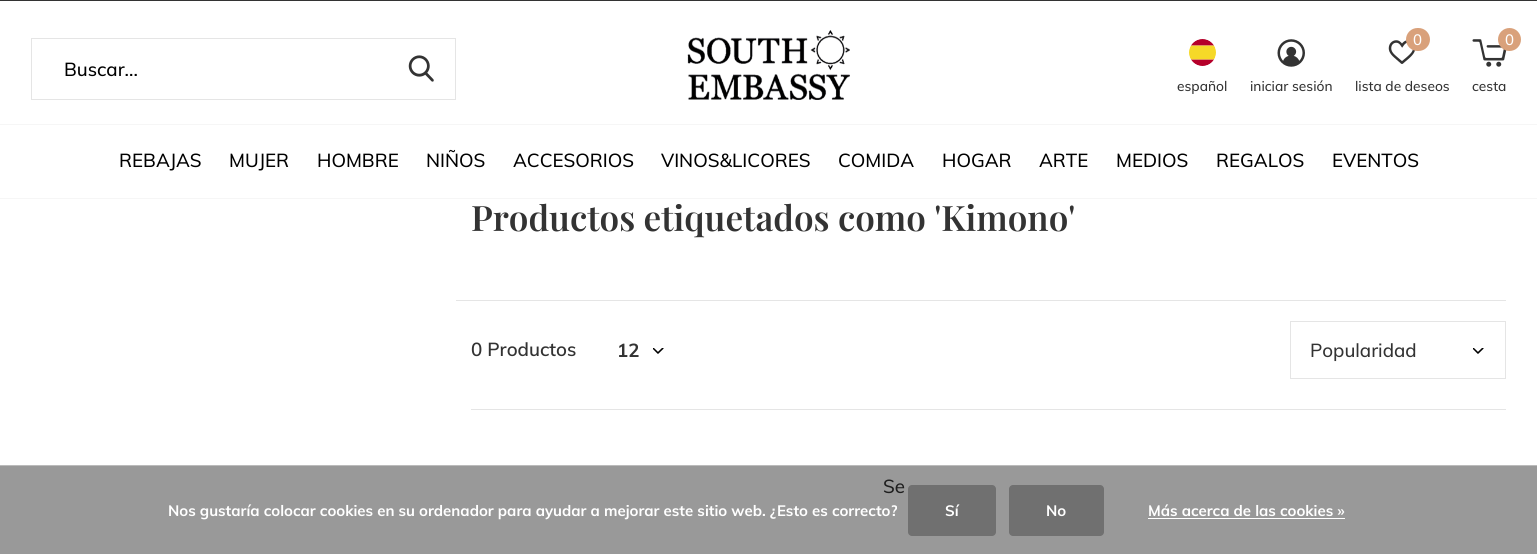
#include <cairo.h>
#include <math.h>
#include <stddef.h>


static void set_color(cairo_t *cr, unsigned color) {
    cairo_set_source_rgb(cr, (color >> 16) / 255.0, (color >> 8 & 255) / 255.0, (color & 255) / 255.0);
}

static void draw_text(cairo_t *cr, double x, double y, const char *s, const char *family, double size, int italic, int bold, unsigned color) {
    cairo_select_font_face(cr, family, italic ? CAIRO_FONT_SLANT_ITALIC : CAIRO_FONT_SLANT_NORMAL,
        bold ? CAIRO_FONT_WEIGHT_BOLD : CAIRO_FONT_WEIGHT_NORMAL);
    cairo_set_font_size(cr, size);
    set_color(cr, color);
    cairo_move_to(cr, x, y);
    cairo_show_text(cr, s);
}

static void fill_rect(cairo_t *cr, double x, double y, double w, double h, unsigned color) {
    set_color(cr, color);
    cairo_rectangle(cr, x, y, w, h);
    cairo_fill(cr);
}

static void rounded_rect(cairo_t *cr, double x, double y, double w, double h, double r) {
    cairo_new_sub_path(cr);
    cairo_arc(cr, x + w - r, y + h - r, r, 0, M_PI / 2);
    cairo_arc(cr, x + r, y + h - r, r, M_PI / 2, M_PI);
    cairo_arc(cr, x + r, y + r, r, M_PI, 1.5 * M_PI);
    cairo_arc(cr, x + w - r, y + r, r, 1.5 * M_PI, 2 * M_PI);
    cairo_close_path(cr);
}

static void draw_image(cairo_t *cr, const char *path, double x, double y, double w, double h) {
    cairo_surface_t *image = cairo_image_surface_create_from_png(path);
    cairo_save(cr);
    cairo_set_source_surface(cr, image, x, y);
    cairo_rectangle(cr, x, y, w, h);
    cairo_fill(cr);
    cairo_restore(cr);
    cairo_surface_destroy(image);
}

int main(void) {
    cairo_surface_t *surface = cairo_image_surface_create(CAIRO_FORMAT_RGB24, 1537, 554);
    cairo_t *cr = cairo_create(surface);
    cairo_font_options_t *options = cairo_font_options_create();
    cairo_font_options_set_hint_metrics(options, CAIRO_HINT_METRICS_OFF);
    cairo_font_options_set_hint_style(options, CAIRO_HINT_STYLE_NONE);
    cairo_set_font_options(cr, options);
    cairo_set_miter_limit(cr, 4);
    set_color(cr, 0xFFFFFF);
    cairo_paint(cr);
    fill_rect(cr, 0, 466, 1537, 88, 0x999999);
    fill_rect(cr, 0, 0, 1537, 1, 0x333333);
    draw_image(cr, "assets/img1.png", 687, 30, 163, 70);
    cairo_rectangle(cr, 31.5, 38.5, 424, 61);
    set_color(cr, 0xE5E5E5);
    cairo_set_line_width(cr, 1);
    cairo_stroke(cr);
    draw_text(cr, 64, 76, "Buscar...", "Muli Medium", 18.75, 0, 0, 0x000000);
    draw_image(cr, "assets/img2.png", 408, 55, 26, 27);
    draw_image(cr, "assets/img3.png", 1189, 39, 27, 27);
    draw_text(cr, 1177, 91, "español", "Muli Medium", 13.75, 0, 0, 0x333333);
    draw_image(cr, "assets/img4.png", 1277, 39, 28, 28);
    draw_text(cr, 1250, 91, "iniciar sesión", "Muli Medium", 13.75, 0, 0, 0x333333);
    draw_image(cr, "assets/img5.png", 1388, 40, 27, 24);
    set_color(cr, 0xD9A17B);
    rounded_rect(cr, 1406, 28, 24, 23, 11.5);
    cairo_fill(cr);
    draw_text(cr, 1413, 45, "0", "Muli Medium", 15, 0, 0, 0xFFFFFF);
    draw_text(cr, 1355, 91, "lista de deseos", "Muli Medium", 13.75, 0, 0, 0x333333);
    draw_image(cr, "assets/img6.png", 1472, 39, 35, 28);
    set_color(cr, 0xD9A17B);
    cairo_arc(cr, 1509.5, 39.5, 11.5, 0, 2 * M_PI);
    cairo_fill(cr);
    draw_text(cr, 1505, 45, "0", "Muli Medium", 15, 0, 0, 0xFFFFFF);
    draw_text(cr, 1472, 91, "cesta", "Muli Medium", 13.75, 0, 0, 0x333333);
    fill_rect(cr, 0, 124, 1537, 1, 0xF6F6F6);
    fill_rect(cr, 0, 198, 1537, 1, 0xF6F6F6);
    draw_text(cr, 119, 167, "REBAJAS", "Muli Medium", 18.75, 0, 0, 0x000000);
    draw_text(cr, 229, 167, "MUJER", "Muli Medium", 18.75, 0, 0, 0x000000);
    draw_text(cr, 317, 167, "HOMBRE", "Muli Medium", 18.75, 0, 0, 0x000000);
    draw_text(cr, 426, 167, "NIÑOS", "Muli Medium", 18.75, 0, 0, 0x000000);
    draw_text(cr, 513, 167, "ACCESORIOS", "Muli Medium", 18.75, 0, 0, 0x000000);
    draw_text(cr, 661, 167, "VINOS&LICORES", "Muli Medium", 18.75, 0, 0, 0x000000);
    draw_text(cr, 838, 167, "COMIDA", "Muli Medium", 18.75, 0, 0, 0x000000);
    draw_text(cr, 942, 167, "HOGAR", "Muli Medium", 18.75, 0, 0, 0x000000);
    draw_text(cr, 1039, 167, "ARTE", "Muli Medium", 18.75, 0, 0, 0x000000);
    draw_text(cr, 1116, 167, "MEDIOS", "Muli Medium", 18.75, 0, 0, 0x000000);
    draw_text(cr, 1216, 167, "REGALOS", "Muli Medium", 18.75, 0, 0, 0x000000);
    draw_text(cr, 1332, 167, "EVENTOS", "Muli Medium", 18.75, 0, 0, 0x000000);
    draw_text(cr, 471, 231, "Productos etiquetados como 'Kimono'", "Playfair Display SemiBold", 35, 0, 0, 0x333333);
    fill_rect(cr, 456, 300, 1050, 1, 0xE5E5E5);
    draw_text(cr, 471, 356, "0 Productos", "Muli SemiBold", 18.75, 0, 0, 0x333333);
    draw_image(cr, "assets/img7.png", 653, 348, 11, 6);
    draw_text(cr, 617, 357, "12", "Muli", 18.75, 0, 1, 0x333333);
    draw_image(cr, "assets/img7.png", 1473, 348, 11, 6);
    cairo_rectangle(cr, 1290.5, 321.5, 215, 57);
    set_color(cr, 0xE5E5E5);
    cairo_stroke(cr);
    draw_text(cr, 1310, 357, "Popularidad", "Muli Medium", 18.75, 0, 0, 0x333333);
    fill_rect(cr, 471, 409, 1035, 1, 0xE5E5E5);
    draw_text(cr, 883, 493, "Se", "Muli Medium", 18.75, 0, 0, 0x1F1F1F);
    fill_rect(cr, 0, 465, 1537, 1, 0xBBBBBB);
    draw_text(cr, 168, 516, "Nos gustaría colocar cookies en su ordenador para ayudar a mejorar este sitio web. ¿Esto es correcto?", "Muli", 15, 0, 1, 0xFFFFFF);
    set_color(cr, 0x707070);
    rounded_rect(cr, 908, 485, 88, 51, 4);
    cairo_fill(cr);
    draw_text(cr, 945, 516, "Sí", "Muli", 15, 0, 1, 0xFFFFFF);
    set_color(cr, 0x707070);
    rounded_rect(cr, 1009, 485, 95, 51, 4);
    cairo_fill(cr);
    draw_text(cr, 1046, 516, "No", "Muli", 15, 0, 1, 0xFFFFFF);
    draw_text(cr, 1148, 516, "Más acerca de las cookies »", "Muli", 15, 0, 1, 0xFFFFFF);
    fill_rect(cr, 1148, 518, 197, 1, 0xFFFFFF);
    cairo_surface_write_to_png(surface, "output.png");
    cairo_font_options_destroy(options);
    cairo_destroy(cr);
    cairo_surface_destroy(surface);
    return 0;
}
